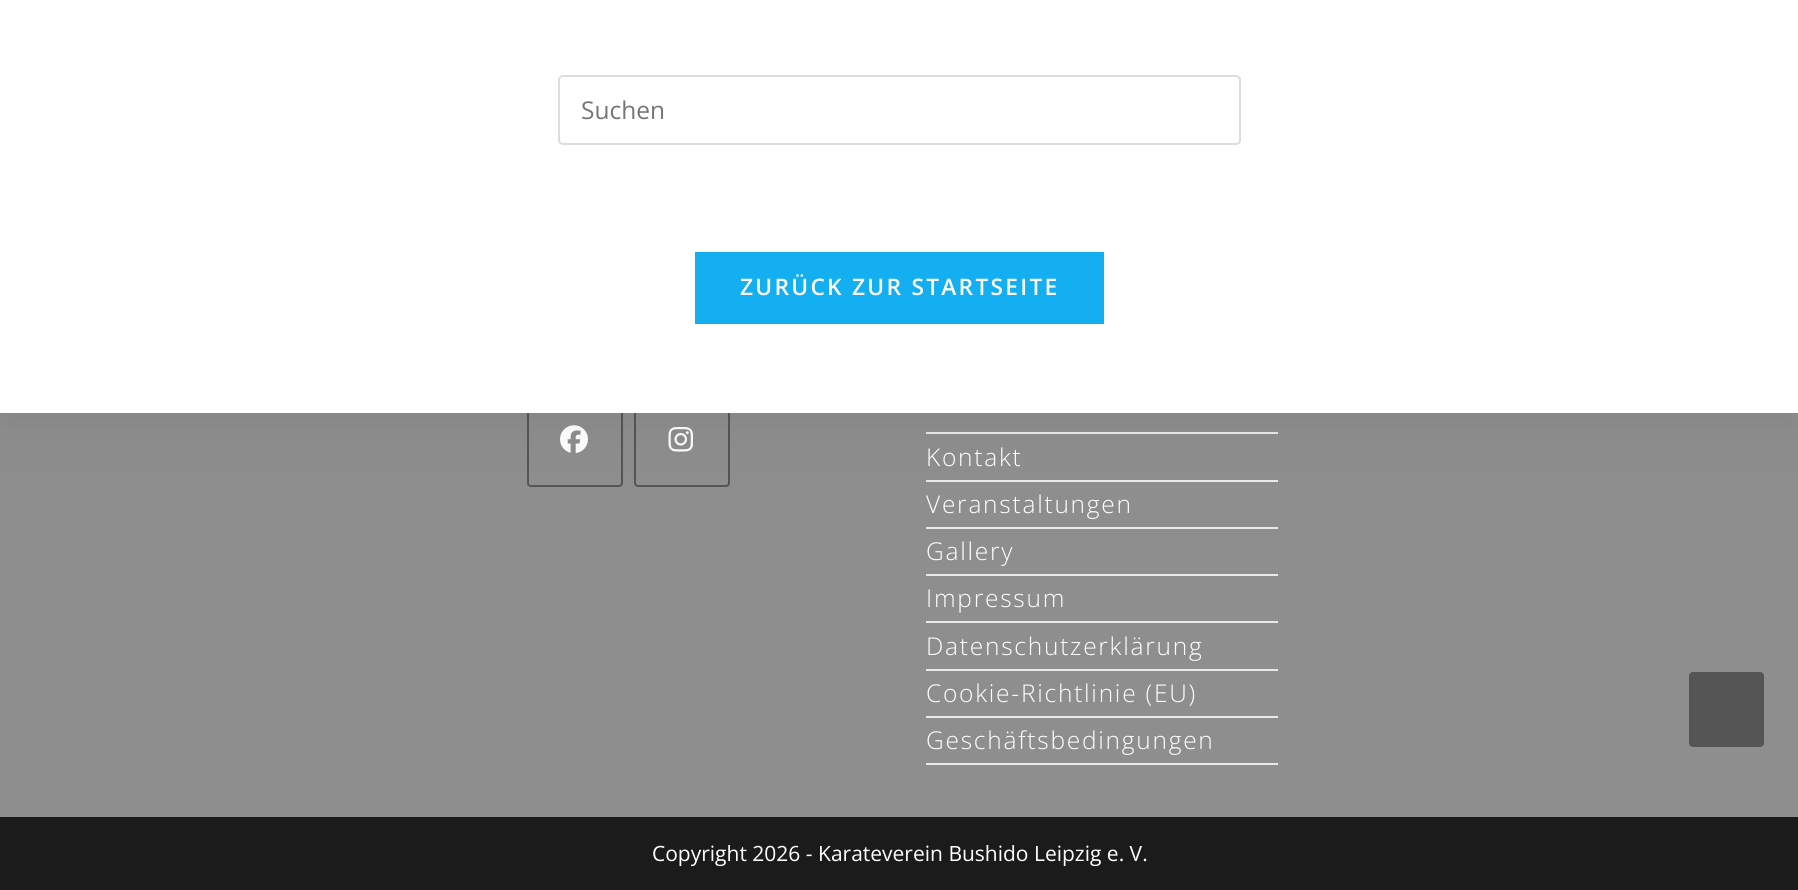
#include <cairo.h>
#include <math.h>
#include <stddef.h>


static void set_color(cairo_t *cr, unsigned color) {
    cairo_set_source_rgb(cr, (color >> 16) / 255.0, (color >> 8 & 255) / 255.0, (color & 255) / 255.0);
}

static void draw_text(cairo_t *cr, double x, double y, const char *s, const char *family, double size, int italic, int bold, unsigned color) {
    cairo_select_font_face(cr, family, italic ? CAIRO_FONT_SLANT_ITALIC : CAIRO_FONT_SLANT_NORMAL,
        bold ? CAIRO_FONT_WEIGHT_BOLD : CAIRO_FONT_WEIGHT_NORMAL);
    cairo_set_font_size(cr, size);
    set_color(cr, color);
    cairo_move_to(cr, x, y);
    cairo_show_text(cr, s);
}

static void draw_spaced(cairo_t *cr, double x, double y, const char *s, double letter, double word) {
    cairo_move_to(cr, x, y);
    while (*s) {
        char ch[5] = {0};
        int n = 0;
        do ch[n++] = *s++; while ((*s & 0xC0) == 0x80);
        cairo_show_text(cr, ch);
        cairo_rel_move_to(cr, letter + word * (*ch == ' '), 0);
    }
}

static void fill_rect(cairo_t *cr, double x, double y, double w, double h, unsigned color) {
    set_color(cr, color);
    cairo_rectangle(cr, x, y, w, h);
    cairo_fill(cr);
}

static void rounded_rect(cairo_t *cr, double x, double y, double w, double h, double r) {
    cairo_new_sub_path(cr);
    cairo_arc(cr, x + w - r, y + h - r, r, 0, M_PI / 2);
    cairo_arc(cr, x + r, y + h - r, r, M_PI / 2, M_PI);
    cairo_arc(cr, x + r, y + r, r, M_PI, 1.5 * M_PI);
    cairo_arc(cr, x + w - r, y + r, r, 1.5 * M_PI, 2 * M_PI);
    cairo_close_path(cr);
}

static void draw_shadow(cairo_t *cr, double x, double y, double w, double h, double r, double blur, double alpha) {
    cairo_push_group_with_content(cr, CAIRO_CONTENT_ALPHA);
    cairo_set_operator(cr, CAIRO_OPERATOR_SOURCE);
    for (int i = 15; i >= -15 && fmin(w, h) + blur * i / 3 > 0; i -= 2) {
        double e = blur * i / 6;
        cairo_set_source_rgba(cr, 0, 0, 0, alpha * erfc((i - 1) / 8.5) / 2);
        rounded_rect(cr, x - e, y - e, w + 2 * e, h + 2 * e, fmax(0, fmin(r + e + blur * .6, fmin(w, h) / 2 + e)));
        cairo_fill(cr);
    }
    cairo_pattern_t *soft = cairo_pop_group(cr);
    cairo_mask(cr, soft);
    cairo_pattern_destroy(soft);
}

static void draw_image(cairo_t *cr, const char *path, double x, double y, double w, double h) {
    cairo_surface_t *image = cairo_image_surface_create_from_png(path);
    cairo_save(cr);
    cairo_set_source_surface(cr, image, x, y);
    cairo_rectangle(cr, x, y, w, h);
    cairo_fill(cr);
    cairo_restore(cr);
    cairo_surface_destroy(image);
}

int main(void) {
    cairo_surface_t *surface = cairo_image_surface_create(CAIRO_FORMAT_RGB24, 1798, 890);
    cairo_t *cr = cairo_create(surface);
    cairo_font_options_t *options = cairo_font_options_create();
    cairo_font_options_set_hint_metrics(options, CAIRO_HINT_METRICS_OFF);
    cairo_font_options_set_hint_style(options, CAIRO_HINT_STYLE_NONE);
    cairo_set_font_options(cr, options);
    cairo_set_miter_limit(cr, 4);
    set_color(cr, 0x8E8E8E);
    cairo_paint(cr);
    rounded_rect(cr, 528, 391, 94, 95, 3);
    set_color(cr, 0x555555);
    cairo_stroke(cr);
    draw_image(cr, "assets/img1.png", 560, 425, 28, 28);
    rounded_rect(cr, 635, 391, 94, 95, 3);
    cairo_stroke(cr);
    draw_image(cr, "assets/img2.png", 668, 427, 25, 25);
    fill_rect(cr, 926, 432, 352, 2, 0xE9E9E9);
    fill_rect(cr, 926, 480, 352, 2, 0xE9E9E9);
    set_color(cr, 0x000000);
    draw_shadow(cr, 0, -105, 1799, 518, 0, 35, 0.1);
    fill_rect(cr, 0, 0, 1798, 413, 0xFFFFFF);
    rounded_rect(cr, 559, 76, 681, 68, 4);
    set_color(cr, 0xDDDDDD);
    cairo_stroke(cr);
    draw_text(cr, 581, 119, "Suchen", "Open Sans", 24.5, 0, 0, 0x757575);
    fill_rect(cr, 695, 252, 409, 72, 0x13AFF0);
    cairo_select_font_face(cr, "Open Sans SemiBold", CAIRO_FONT_SLANT_NORMAL, CAIRO_FONT_WEIGHT_NORMAL);
    cairo_set_font_size(cr, 22.75);
    set_color(cr, 0xFFFFFF);
    draw_spaced(cr, 740, 295, "ZURÜCK ZUR STARTSEITE", 2.25, 0);
    cairo_select_font_face(cr, "Open Sans Light", CAIRO_FONT_SLANT_NORMAL, CAIRO_FONT_WEIGHT_NORMAL);
    cairo_set_font_size(cr, 24.5);
    draw_spaced(cr, 926, 466, "Kontakt", 1.75, 0);
    fill_rect(cr, 926, 527, 352, 2, 0xE9E9E9);
    set_color(cr, 0xFFFFFF);
    draw_spaced(cr, 926, 513, "Veranstaltungen", 1.75, 0);
    fill_rect(cr, 926, 574, 352, 2, 0xE9E9E9);
    set_color(cr, 0xFFFFFF);
    draw_spaced(cr, 926, 560, "Gallery", 1.75, 0);
    fill_rect(cr, 926, 621, 352, 2, 0xE9E9E9);
    set_color(cr, 0xFFFFFF);
    draw_spaced(cr, 926, 607, "Impressum", 1.75, 0);
    fill_rect(cr, 926, 669, 352, 2, 0xE9E9E9);
    set_color(cr, 0xFFFFFF);
    draw_spaced(cr, 926, 655, "Datenschutzerklärung", 1.75, 0);
    fill_rect(cr, 926, 716, 352, 2, 0xE9E9E9);
    set_color(cr, 0xFFFFFF);
    draw_spaced(cr, 926, 702, "Cookie-Richtlinie (EU)", 1.75, 0);
    fill_rect(cr, 926, 763, 352, 2, 0xE9E9E9);
    set_color(cr, 0xFFFFFF);
    draw_spaced(cr, 926, 749, "Geschäftsbedingungen", 1.75, 0);
    fill_rect(cr, 0, 817, 1798, 73, 0x1B1B1B);
    draw_text(cr, 652, 861, "Copyright 2026 - Karateverein Bushido Leipzig e. V.", "Open Sans", 21, 0, 0, 0xFFFFFF);
    set_color(cr, 0x555555);
    rounded_rect(cr, 1689, 672, 75, 75, 4);
    cairo_fill(cr);
    cairo_surface_write_to_png(surface, "output.png");
    cairo_font_options_destroy(options);
    cairo_destroy(cr);
    cairo_surface_destroy(surface);
    return 0;
}
